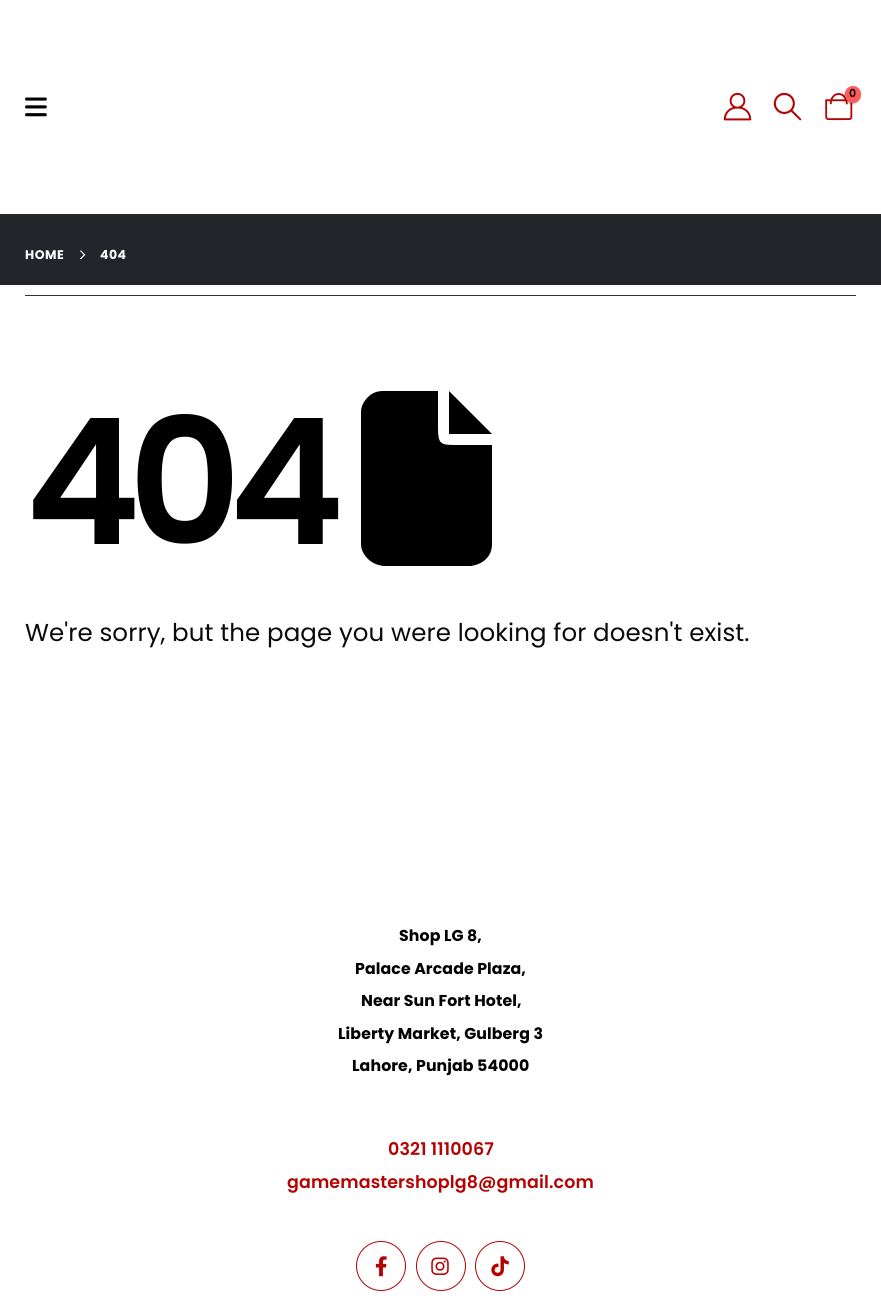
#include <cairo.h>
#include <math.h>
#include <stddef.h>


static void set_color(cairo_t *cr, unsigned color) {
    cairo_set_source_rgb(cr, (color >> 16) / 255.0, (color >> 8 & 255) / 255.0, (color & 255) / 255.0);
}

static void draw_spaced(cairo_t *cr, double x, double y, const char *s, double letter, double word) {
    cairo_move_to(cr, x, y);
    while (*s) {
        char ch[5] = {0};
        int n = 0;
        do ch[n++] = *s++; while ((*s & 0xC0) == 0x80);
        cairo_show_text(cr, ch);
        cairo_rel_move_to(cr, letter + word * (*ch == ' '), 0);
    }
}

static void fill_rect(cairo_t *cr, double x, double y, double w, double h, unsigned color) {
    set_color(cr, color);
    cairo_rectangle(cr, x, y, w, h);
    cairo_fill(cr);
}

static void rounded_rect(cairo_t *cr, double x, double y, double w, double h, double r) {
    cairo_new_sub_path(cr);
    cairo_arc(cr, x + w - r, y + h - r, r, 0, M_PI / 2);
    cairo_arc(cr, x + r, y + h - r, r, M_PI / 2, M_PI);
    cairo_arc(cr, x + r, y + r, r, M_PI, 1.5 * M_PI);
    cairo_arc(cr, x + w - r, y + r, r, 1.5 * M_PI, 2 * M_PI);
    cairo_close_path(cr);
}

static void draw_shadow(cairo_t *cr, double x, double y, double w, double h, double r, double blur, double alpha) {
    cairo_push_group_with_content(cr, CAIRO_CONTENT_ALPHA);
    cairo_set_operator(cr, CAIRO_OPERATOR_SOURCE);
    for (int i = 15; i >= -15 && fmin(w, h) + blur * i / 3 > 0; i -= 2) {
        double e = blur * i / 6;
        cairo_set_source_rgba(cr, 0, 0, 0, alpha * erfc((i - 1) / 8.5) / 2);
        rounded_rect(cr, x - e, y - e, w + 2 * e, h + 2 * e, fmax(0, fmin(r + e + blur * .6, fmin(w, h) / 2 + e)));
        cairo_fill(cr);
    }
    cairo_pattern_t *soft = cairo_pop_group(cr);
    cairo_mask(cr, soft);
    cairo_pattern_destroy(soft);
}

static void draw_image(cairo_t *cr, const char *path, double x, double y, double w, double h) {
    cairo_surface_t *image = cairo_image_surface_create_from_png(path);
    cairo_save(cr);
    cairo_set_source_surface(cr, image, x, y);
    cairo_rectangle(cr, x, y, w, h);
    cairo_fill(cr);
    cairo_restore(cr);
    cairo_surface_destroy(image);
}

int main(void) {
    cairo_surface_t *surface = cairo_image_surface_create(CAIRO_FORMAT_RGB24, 881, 1312);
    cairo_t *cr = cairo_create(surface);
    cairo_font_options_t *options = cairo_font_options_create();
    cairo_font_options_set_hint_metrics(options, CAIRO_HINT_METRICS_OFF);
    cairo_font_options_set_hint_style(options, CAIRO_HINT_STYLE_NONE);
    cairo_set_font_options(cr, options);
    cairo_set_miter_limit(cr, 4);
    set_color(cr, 0x222529);
    cairo_paint(cr);
    fill_rect(cr, 0, 0, 881, 214, 0xFFFFFF);
    draw_image(cr, "assets/img1.png", 723, 92, 29, 29);
    draw_image(cr, "assets/img2.png", 773, 92, 29, 29);
    draw_image(cr, "assets/img3.png", 825, 93, 28, 28);
    set_color(cr, 0x000000);
    draw_shadow(cr, 844, 88, 16, 16, 8, 1, 0.3);
    set_color(cr, 0xFF5B5B);
    rounded_rect(cr, 845, 86, 16, 17, 8);
    cairo_fill(cr);
    cairo_select_font_face(cr, "Poppins SemiBold", CAIRO_FONT_SLANT_NORMAL, CAIRO_FONT_WEIGHT_NORMAL);
    cairo_set_font_size(cr, 11);
    set_color(cr, 0x000000);
    draw_spaced(cr, 849, 97, "0", 0.1, 0);
    draw_image(cr, "assets/img4.png", 25, 97, 22, 20);
    cairo_select_font_face(cr, "Poppins", CAIRO_FONT_SLANT_NORMAL, CAIRO_FONT_WEIGHT_BOLD);
    cairo_set_font_size(cr, 12.5);
    set_color(cr, 0xFFFFFF);
    draw_spaced(cr, 25, 259, "HOME", 0.5, 0);
    draw_image(cr, "assets/img5.png", 80, 250, 6, 10);
    draw_spaced(cr, 100, 259, "404", 0.5, 0);
    fill_rect(cr, 0, 285, 881, 1027, 0xFFFFFF);
    fill_rect(cr, 25, 295, 831, 1, 0x303438);
    cairo_select_font_face(cr, "Poppins SemiBold", CAIRO_FONT_SLANT_NORMAL, CAIRO_FONT_WEIGHT_NORMAL);
    cairo_set_font_size(cr, 175);
    set_color(cr, 0x000000);
    draw_spaced(cr, 25, 544, "404", -12.5, 0);
    cairo_new_path(cr);
    cairo_move_to(cr, 361, 412);
    cairo_curve_to(cr, 361, 406, 364, 401, 368, 397);
    cairo_curve_to(cr, 372, 393, 377, 391, 383, 391);
    cairo_line_to(cr, 438, 391);
    cairo_line_to(cr, 438, 427);
    cairo_curve_to(cr, 438, 444, 440, 445, 456, 445);
    cairo_line_to(cr, 492, 445);
    cairo_line_to(cr, 492, 544);
    cairo_curve_to(cr, 492, 550, 490, 555, 486, 559);
    cairo_curve_to(cr, 482, 563, 477, 565, 471, 566);
    cairo_line_to(cr, 383, 566);
    cairo_curve_to(cr, 377, 565, 372, 563, 368, 559);
    cairo_curve_to(cr, 364, 555, 361, 550, 361, 544);
    cairo_close_path(cr);
    cairo_move_to(cr, 492, 434);
    cairo_line_to(cr, 449, 434);
    cairo_line_to(cr, 449, 391);
    cairo_close_path(cr);
    cairo_fill(cr);
    cairo_select_font_face(cr, "Poppins", CAIRO_FONT_SLANT_NORMAL, CAIRO_FONT_WEIGHT_NORMAL);
    cairo_set_font_size(cr, 24.5);
    set_color(cr, 0x0A0A0A);
    draw_spaced(cr, 25, 641, "We're sorry, but the page you were looking for doesn't exist.", 0.1, 0);
    cairo_select_font_face(cr, "Poppins", CAIRO_FONT_SLANT_NORMAL, CAIRO_FONT_WEIGHT_BOLD);
    cairo_set_font_size(cr, 15.75);
    set_color(cr, 0x000000);
    draw_spaced(cr, 399, 941, "Shop LG 8,", 0.1, 0);
    draw_spaced(cr, 355, 974, "Palace Arcade Plaza,", 0.1, 0);
    draw_spaced(cr, 361, 1006, "Near Sun Fort Hotel,", 0.1, 0);
    draw_spaced(cr, 338, 1039, "Liberty Market, Gulberg 3", 0.1, 0);
    draw_spaced(cr, 352, 1071, "Lahore, Punjab 54000", 0.1, 0);
    cairo_select_font_face(cr, "Poppins SemiBold", CAIRO_FONT_SLANT_NORMAL, CAIRO_FONT_WEIGHT_NORMAL);
    cairo_set_font_size(cr, 17.5);
    set_color(cr, 0xB30303);
    draw_spaced(cr, 388, 1155, "0321 1110067", 0.1, 0);
    draw_spaced(cr, 287, 1188, "gamemastershoplg8@gmail.com", 0.1, 0);
    cairo_new_path(cr);
    cairo_arc(cr, 381, 1266, 24.5, 0, 2 * M_PI);
    cairo_set_line_width(cr, 1);
    cairo_stroke(cr);
    draw_image(cr, "assets/img6.png", 375, 1256, 12, 21);
    cairo_arc(cr, 441, 1266, 24.5, 0, 2 * M_PI);
    cairo_stroke(cr);
    draw_image(cr, "assets/img7.png", 431, 1257, 18, 18);
    cairo_arc(cr, 500, 1266, 24.5, 0, 2 * M_PI);
    cairo_stroke(cr);
    draw_image(cr, "assets/img8.png", 491, 1256, 18, 21);
    cairo_surface_write_to_png(surface, "output.png");
    cairo_font_options_destroy(options);
    cairo_destroy(cr);
    cairo_surface_destroy(surface);
    return 0;
}
